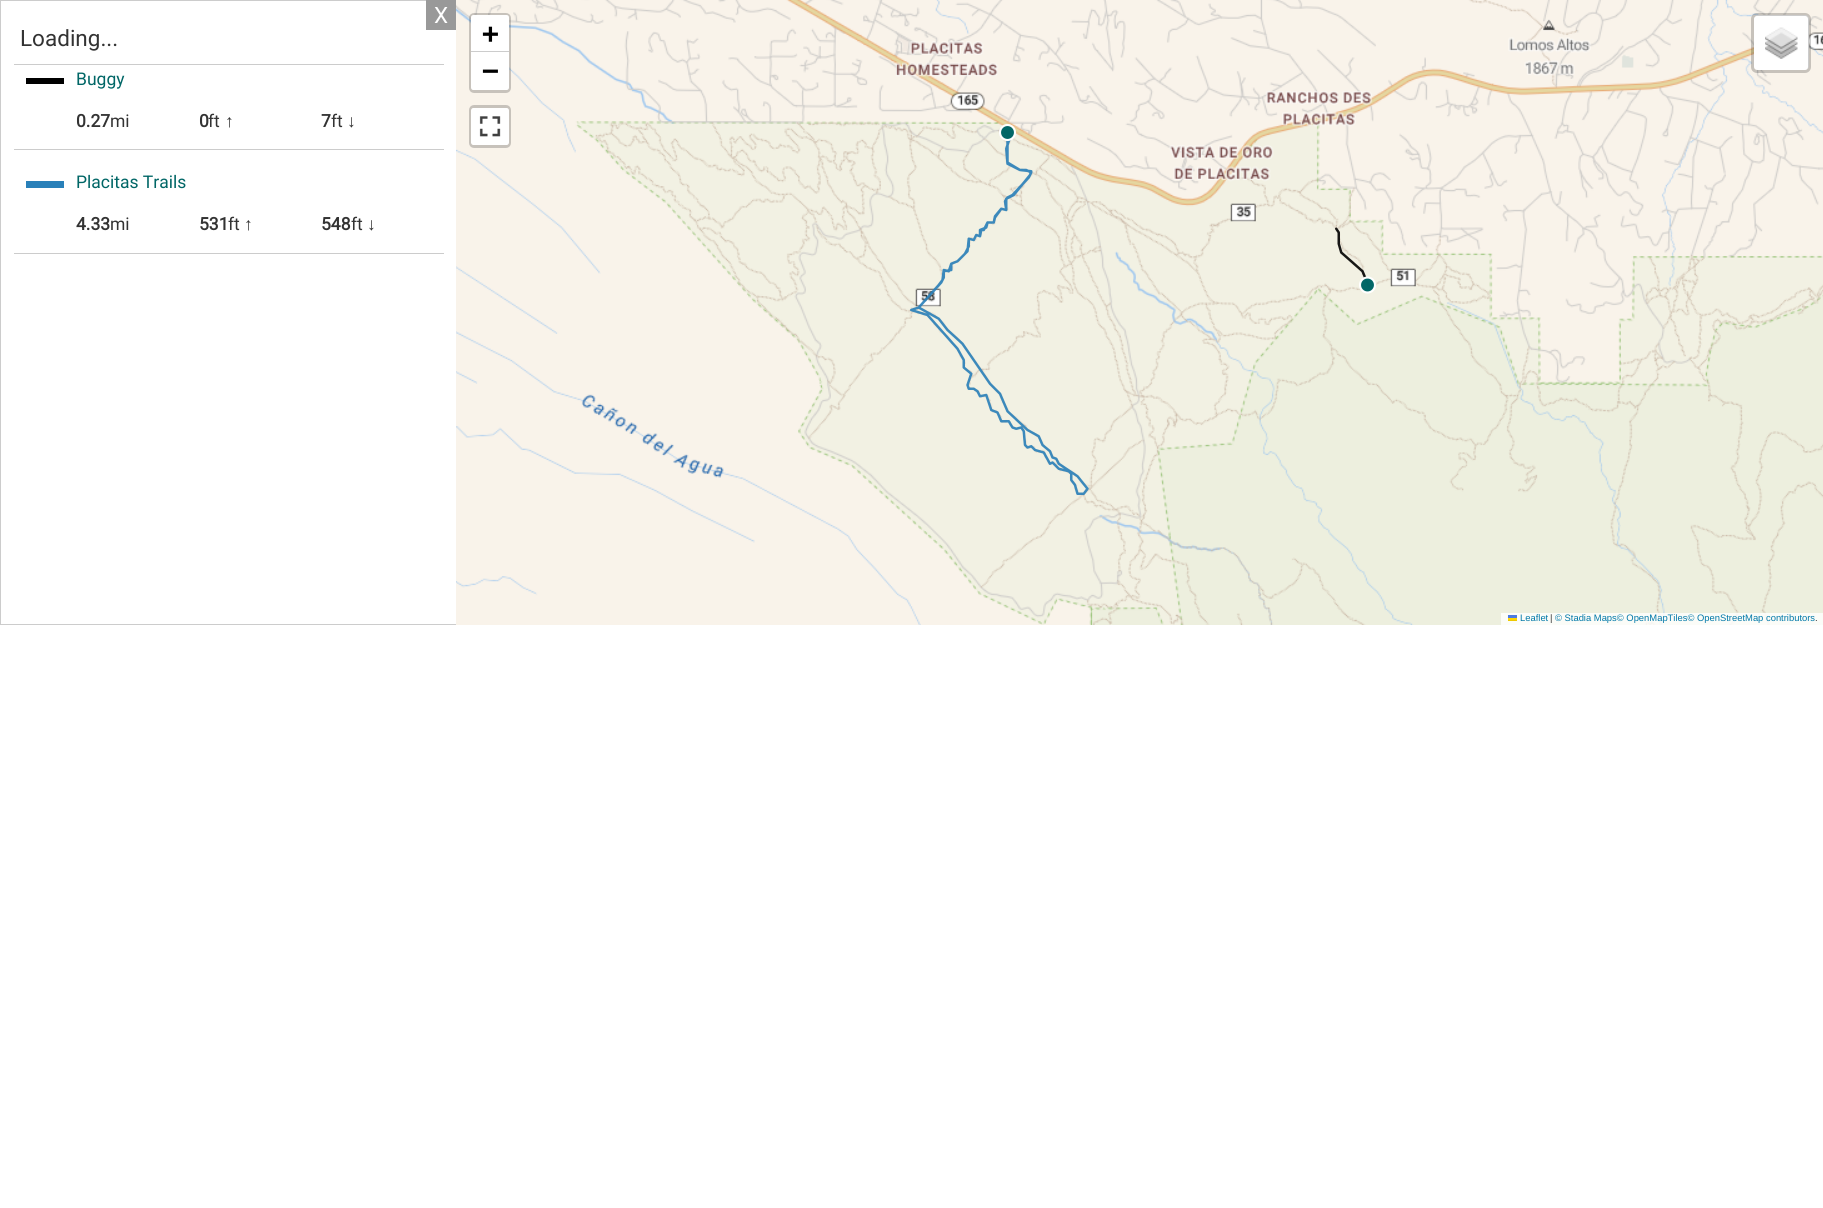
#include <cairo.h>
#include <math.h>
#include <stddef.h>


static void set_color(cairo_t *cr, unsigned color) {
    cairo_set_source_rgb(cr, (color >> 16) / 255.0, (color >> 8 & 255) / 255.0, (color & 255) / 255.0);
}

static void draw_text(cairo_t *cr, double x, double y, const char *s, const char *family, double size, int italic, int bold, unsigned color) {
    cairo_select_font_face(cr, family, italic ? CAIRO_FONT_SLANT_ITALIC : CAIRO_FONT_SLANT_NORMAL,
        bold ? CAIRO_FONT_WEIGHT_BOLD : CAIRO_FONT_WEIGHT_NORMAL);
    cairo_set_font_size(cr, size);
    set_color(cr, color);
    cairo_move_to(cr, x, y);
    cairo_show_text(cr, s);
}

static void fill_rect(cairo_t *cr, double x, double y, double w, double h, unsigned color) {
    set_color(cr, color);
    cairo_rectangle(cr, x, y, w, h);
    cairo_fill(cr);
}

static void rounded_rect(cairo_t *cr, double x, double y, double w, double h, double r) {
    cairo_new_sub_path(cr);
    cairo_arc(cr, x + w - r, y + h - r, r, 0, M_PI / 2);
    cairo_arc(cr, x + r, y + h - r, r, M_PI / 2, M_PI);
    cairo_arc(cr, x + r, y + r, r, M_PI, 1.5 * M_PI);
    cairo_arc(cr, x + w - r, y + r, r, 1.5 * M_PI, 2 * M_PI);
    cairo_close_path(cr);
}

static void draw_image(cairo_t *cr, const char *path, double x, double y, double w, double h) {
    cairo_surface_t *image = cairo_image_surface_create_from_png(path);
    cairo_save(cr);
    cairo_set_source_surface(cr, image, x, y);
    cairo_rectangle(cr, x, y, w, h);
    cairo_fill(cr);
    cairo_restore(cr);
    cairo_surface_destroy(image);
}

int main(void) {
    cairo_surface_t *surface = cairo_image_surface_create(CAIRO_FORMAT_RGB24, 1823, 1208);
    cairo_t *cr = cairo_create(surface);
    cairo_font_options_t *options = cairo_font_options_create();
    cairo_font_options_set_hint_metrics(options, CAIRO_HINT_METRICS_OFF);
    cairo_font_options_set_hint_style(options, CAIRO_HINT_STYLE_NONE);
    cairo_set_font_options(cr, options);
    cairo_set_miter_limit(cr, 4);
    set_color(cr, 0xFFFFFF);
    cairo_paint(cr);
    fill_rect(cr, 0, 0, 426, 1, 0xCCCCCC);
    fill_rect(cr, 0, 624, 456, 1, 0xCCCCCC);
    fill_rect(cr, 0, 0, 1, 625, 0xCCCCCC);
    fill_rect(cr, 426, 0, 30, 30, 0x999999);
    draw_text(cr, 434, 23, "X", "Roboto", 22.5, 0, 0, 0xFFFFFF);
    fill_rect(cr, 14, 64, 430, 1, 0xCCCCCC);
    draw_text(cr, 20, 46, "Loading...", "Roboto", 22.5, 0, 0, 0x333333);
    fill_rect(cr, 14, 149, 430, 1, 0xCCCCCC);
    fill_rect(cr, 26, 78, 38, 6, 0x000000);
    draw_text(cr, 76, 85, "Buggy", "Roboto", 17.5, 0, 0, 0x006666);
    draw_text(cr, 76, 127, "0.27", "Roboto", 17.5, 0, 1, 0x333333);
    draw_text(cr, 110, 127, "mi", "Roboto", 17.5, 0, 0, 0x333333);
    draw_text(cr, 199, 127, "0", "Roboto", 17.5, 0, 1, 0x333333);
    draw_text(cr, 208, 127, "ft", "Roboto", 17.5, 0, 0, 0x333333);
    draw_text(cr, 225, 127, "↑", "Liberation Sans", 17.5, 0, 0, 0x333333);
    draw_text(cr, 321, 127, "7", "Roboto", 17.5, 0, 1, 0x333333);
    draw_text(cr, 331, 127, "ft", "Roboto", 17.5, 0, 0, 0x333333);
    draw_text(cr, 347, 127, "↓", "Liberation Sans", 17.5, 0, 0, 0x333333);
    fill_rect(cr, 14, 253, 430, 1, 0xCCCCCC);
    fill_rect(cr, 26, 181, 38, 7, 0x2980B9);
    draw_text(cr, 76, 188, "Placitas Trails", "Roboto", 17.5, 0, 0, 0x006666);
    draw_text(cr, 76, 230, "4.33", "Roboto", 17.5, 0, 1, 0x333333);
    draw_text(cr, 110, 230, "mi", "Roboto", 17.5, 0, 0, 0x333333);
    draw_text(cr, 199, 230, "531", "Roboto", 17.5, 0, 1, 0x333333);
    draw_text(cr, 228, 230, "ft", "Roboto", 17.5, 0, 0, 0x333333);
    draw_text(cr, 244, 230, "↑", "Liberation Sans", 17.5, 0, 0, 0x333333);
    draw_text(cr, 321, 230, "548", "Roboto", 17.5, 0, 1, 0x333333);
    draw_text(cr, 351, 230, "ft", "Roboto", 17.5, 0, 0, 0x333333);
    draw_text(cr, 367, 230, "↓", "Liberation Sans", 17.5, 0, 0, 0x333333);
    draw_image(cr, "assets/img1.png", 456, 0, 1367, 625);
    draw_image(cr, "assets/img2.png", 910, 130, 460, 365);
    cairo_set_source_rgba(cr, 0, 0.4, 0.4, 0.99);
    cairo_arc(cr, 1007.5, 132.5, 7.5, 0, 2 * M_PI);
    cairo_fill_preserve(cr);
    cairo_set_source_rgba(cr, 1, 1, 1, 0.99);
    cairo_set_line_width(cr, 2.1);
    cairo_stroke(cr);
    cairo_set_source_rgba(cr, 0, 0.4, 0.4, 0.99);
    cairo_arc(cr, 1367.5, 285, 7.5, 0, 2 * M_PI);
    cairo_fill_preserve(cr);
    cairo_set_source_rgba(cr, 1, 1, 1, 0.99);
    cairo_stroke(cr);
    rounded_rect(cr, 470.5, 14.5, 39, 77, 3.5);
    cairo_set_source_rgba(cr, 0, 0, 0, 0.2);
    cairo_set_line_width(cr, 3);
    cairo_stroke(cr);
    set_color(cr, 0xFFFFFF);
    cairo_new_path(cr);
    cairo_move_to(cr, 473.5, 15);
    cairo_line_to(cr, 506.5, 15);
    cairo_curve_to(cr, 508, 15, 509, 16, 509, 17.5);
    cairo_line_to(cr, 509, 53);
    cairo_line_to(cr, 471, 53);
    cairo_line_to(cr, 471, 17.5);
    cairo_curve_to(cr, 471, 16, 472, 15, 473.5, 15);
    cairo_close_path(cr);
    cairo_fill(cr);
    fill_rect(cr, 471, 51, 38, 1, 0xCCCCCC);
    draw_text(cr, 482, 43, "+", "DejaVu Sans Mono", 28, 0, 1, 0x000000);
    set_color(cr, 0xFFFFFF);
    cairo_new_path(cr);
    cairo_move_to(cr, 471, 53);
    cairo_line_to(cr, 509, 53);
    cairo_line_to(cr, 509, 87.5);
    cairo_curve_to(cr, 509, 89, 508, 90, 506.5, 90);
    cairo_line_to(cr, 473.5, 90);
    cairo_curve_to(cr, 472, 90, 471, 89, 471, 87.5);
    cairo_close_path(cr);
    cairo_fill(cr);
    draw_text(cr, 482, 80, "−", "DejaVu Sans Mono", 28, 0, 1, 0x000000);
    rounded_rect(cr, 470.5, 106.5, 39, 40, 3.5);
    set_color(cr, 0xC7C2BB);
    cairo_stroke(cr);
    set_color(cr, 0xFFFFFF);
    rounded_rect(cr, 471, 108, 38, 37, 2.5);
    cairo_fill(cr);
    draw_image(cr, "assets/img3.png", 479, 116, 22, 21);
    rounded_rect(cr, 1754, 15, 55, 55, 4);
    cairo_fill(cr);
    rounded_rect(cr, 1752.5, 14.5, 57, 57, 4.5);
    cairo_set_source_rgba(cr, 0, 0, 0, 0.2);
    cairo_stroke(cr);
    draw_image(cr, "assets/img4.png", 1765, 27, 33, 32);
    cairo_set_source_rgba(cr, 1, 1, 1, 0.8);
    cairo_rectangle(cr, 1501, 613, 322, 12);
    cairo_fill(cr);
    draw_image(cr, "assets/img5.png", 1508, 615, 9, 6);
    draw_text(cr, 1520, 621, "Leaflet", "Liberation Sans", 9.4, 0, 0, 0x0078A8);
    draw_text(cr, 1550, 621, "|", "Liberation Sans", 9.4, 0, 0, 0x333333);
    draw_text(cr, 1555, 621, "© Stadia Maps© OpenMapTiles© OpenStreetMap contributors", "Liberation Sans", 9.4, 0, 0, 0x0078A8);
    draw_text(cr, 1815, 621, ".", "Liberation Sans", 9.4, 0, 0, 0x333333);
    cairo_surface_write_to_png(surface, "output.png");
    cairo_font_options_destroy(options);
    cairo_destroy(cr);
    cairo_surface_destroy(surface);
    return 0;
}
